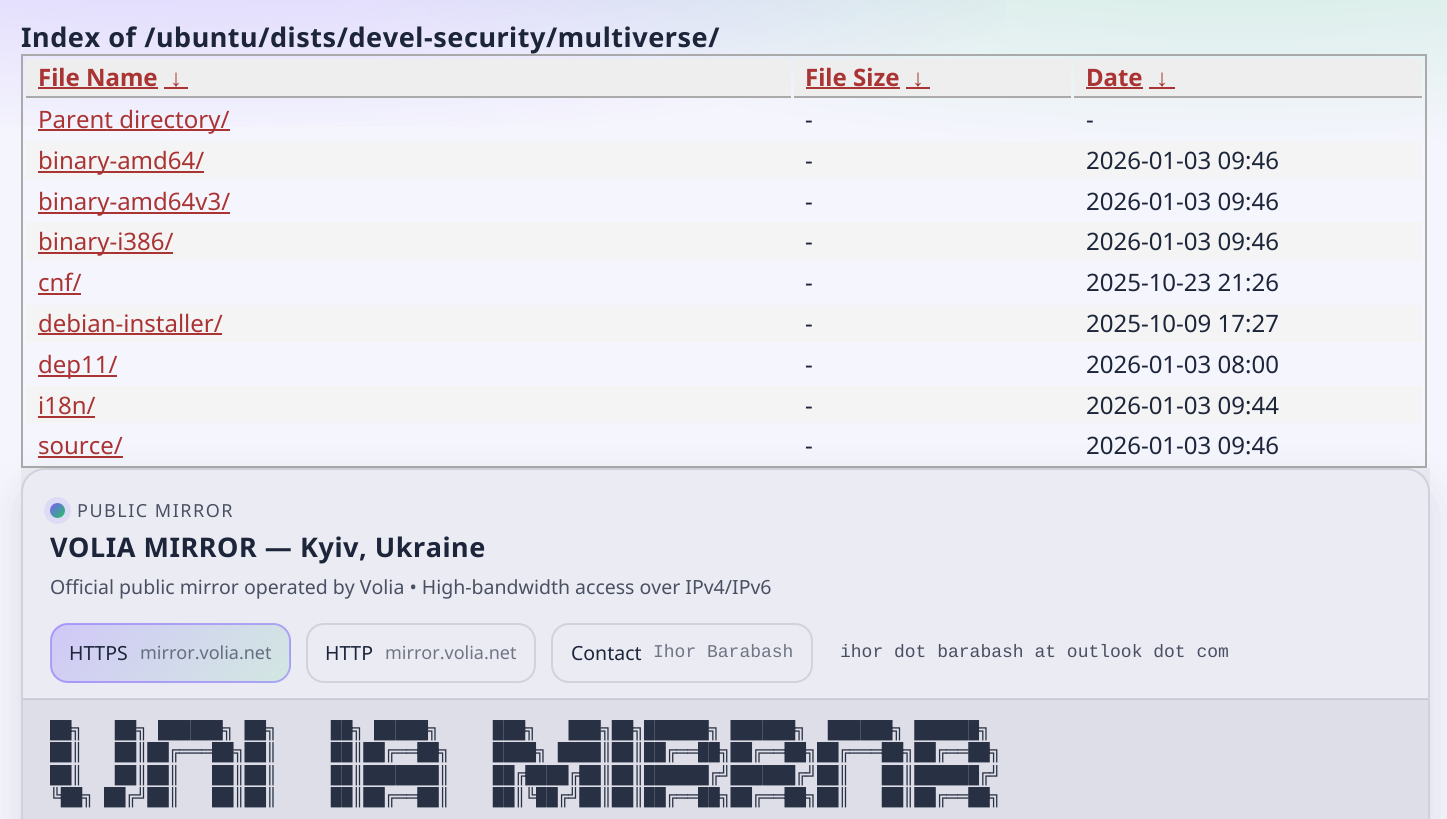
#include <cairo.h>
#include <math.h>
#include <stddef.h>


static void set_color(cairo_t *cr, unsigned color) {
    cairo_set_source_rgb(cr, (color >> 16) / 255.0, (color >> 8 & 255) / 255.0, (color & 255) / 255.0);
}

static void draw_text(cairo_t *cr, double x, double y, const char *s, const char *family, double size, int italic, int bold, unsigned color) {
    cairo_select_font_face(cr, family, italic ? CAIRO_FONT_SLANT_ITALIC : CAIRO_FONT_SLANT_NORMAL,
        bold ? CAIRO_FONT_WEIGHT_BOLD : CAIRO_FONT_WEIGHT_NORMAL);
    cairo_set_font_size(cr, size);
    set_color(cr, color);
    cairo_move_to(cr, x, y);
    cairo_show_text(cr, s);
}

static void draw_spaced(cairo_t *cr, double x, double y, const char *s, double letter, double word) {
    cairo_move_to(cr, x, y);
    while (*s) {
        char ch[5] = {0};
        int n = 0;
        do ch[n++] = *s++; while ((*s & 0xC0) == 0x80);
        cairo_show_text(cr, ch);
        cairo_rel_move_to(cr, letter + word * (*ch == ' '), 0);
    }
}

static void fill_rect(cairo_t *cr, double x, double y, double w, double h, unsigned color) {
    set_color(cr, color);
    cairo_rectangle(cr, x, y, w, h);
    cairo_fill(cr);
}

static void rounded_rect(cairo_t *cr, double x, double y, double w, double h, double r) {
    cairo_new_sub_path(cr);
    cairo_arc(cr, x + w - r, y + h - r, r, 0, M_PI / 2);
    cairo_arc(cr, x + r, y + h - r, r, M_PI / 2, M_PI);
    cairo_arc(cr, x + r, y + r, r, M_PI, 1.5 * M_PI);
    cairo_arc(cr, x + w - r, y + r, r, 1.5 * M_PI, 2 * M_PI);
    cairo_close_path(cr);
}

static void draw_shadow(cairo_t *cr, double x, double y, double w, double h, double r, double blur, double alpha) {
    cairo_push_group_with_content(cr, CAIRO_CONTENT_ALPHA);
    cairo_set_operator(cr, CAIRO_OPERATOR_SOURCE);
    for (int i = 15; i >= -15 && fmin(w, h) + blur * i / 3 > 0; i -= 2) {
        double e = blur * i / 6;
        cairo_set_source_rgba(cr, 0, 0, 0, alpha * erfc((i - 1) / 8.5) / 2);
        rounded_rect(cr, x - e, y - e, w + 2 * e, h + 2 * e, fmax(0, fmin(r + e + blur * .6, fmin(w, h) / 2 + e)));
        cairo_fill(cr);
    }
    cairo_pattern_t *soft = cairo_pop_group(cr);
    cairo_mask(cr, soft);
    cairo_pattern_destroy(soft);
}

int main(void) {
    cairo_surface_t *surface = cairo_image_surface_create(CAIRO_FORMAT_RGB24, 1447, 819);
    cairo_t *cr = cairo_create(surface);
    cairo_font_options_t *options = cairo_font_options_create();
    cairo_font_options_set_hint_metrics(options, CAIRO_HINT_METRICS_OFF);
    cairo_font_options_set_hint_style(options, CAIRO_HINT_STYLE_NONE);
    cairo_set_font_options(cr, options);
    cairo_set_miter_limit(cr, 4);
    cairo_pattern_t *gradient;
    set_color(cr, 0xFFFFFF);
    cairo_paint(cr);
    gradient = cairo_pattern_create_radial(0, 0, 0, 0, 0, 1);
    cairo_pattern_set_matrix(gradient, &(cairo_matrix_t){1.0 / 1800, 0, 0, 1.0 / 510, -1.0 * 1230 / 1800, -1.0 * -133 / 510});
    cairo_pattern_add_color_stop_rgba(gradient, 0, 0.776, 0.918, 0.855, 1);
    cairo_pattern_add_color_stop_rgba(gradient, 0.55, 0.961, 0.961, 0.992, 1);
    cairo_set_source(cr, gradient);
    cairo_pattern_destroy(gradient);
    cairo_rectangle(cr, 0, 0, 1447, 819);
    cairo_fill(cr);
    gradient = cairo_pattern_create_radial(0, 0, 0, 0, 0, 1);
    cairo_pattern_set_matrix(gradient, &(cairo_matrix_t){1.0 / 1800, 0, 0, 1.0 / 510, -1.0 * 217 / 1800, -1.0 * -133 / 510});
    cairo_pattern_add_color_stop_rgba(gradient, 0, 0.486, 0.361, 1, 0.28);
    cairo_pattern_add_color_stop_rgba(gradient, 0.55, 0.486, 0.361, 1, 0);
    cairo_set_source(cr, gradient);
    cairo_pattern_destroy(gradient);
    cairo_rectangle(cr, 0, 0, 1006, 127);
    cairo_fill(cr);
    cairo_select_font_face(cr, "Noto Sans", CAIRO_FONT_SLANT_NORMAL, CAIRO_FONT_WEIGHT_BOLD);
    cairo_set_font_size(cr, 27);
    set_color(cr, 0x1C2539);
    draw_spaced(cr, 21, 47, "Index of /ubuntu/dists/devel-security/multiverse/", 0.55, 0);
    cairo_rectangle(cr, 22, 55, 1404, 412);
    set_color(cr, 0xAAAAAA);
    cairo_stroke(cr);
    fill_rect(cr, 26, 59, 765, 37, 0xEEEEEE);
    fill_rect(cr, 26, 96, 765, 2, 0xAAAAAA);
    draw_text(cr, 38, 86, "File Name", "Noto Sans", 24, 0, 1, 0xAA3333);
    fill_rect(cr, 38, 87, 120, 2, 0xAA3333);
    draw_text(cr, 170, 86, "↓", "Liberation Sans", 24, 0, 1, 0xAA3333);
    fill_rect(cr, 164, 87, 24, 2, 0xAA3333);
    fill_rect(cr, 794, 59, 277, 37, 0xEEEEEE);
    fill_rect(cr, 794, 96, 277, 2, 0xAAAAAA);
    draw_text(cr, 805, 86, "File Size", "Noto Sans", 24, 0, 1, 0xAA3333);
    fill_rect(cr, 806, 87, 94, 2, 0xAA3333);
    draw_text(cr, 912, 86, "↓", "Liberation Sans", 24, 0, 1, 0xAA3333);
    fill_rect(cr, 906, 87, 24, 2, 0xAA3333);
    fill_rect(cr, 1074, 59, 348, 37, 0xEEEEEE);
    fill_rect(cr, 1074, 96, 348, 2, 0xAAAAAA);
    draw_text(cr, 1086, 86, "Date", "Noto Sans", 24, 0, 1, 0xAA3333);
    fill_rect(cr, 1086, 87, 57, 2, 0xAA3333);
    draw_text(cr, 1156, 86, "↓", "Liberation Sans", 24, 0, 1, 0xAA3333);
    fill_rect(cr, 1149, 87, 26, 2, 0xAA3333);
    fill_rect(cr, 38, 129, 192, 2, 0xAA3333);
    draw_text(cr, 38, 128, "Parent directory/", "Noto Sans", 24, 0, 0, 0xAA3333);
    draw_text(cr, 805, 128, "-", "Noto Sans", 24, 0, 0, 0x1C2539);
    draw_text(cr, 1086, 128, "-", "Noto Sans", 24, 0, 0, 0x1C2539);
    fill_rect(cr, 26, 141, 1396, 38, 0xF4F4F4);
    fill_rect(cr, 38, 171, 166, 2, 0xAA3333);
    draw_text(cr, 38, 169, "binary-amd64/", "Noto Sans", 24, 0, 0, 0xAA3333);
    draw_text(cr, 805, 169, "-", "Noto Sans", 24, 0, 0, 0x1C2539);
    draw_text(cr, 1086, 169, "2026-01-03 09:46", "Noto Sans", 24, 0, 0, 0x1C2539);
    fill_rect(cr, 38, 212, 192, 2, 0xAA3333);
    draw_text(cr, 38, 210, "binary-amd64v3/", "Noto Sans", 24, 0, 0, 0xAA3333);
    draw_text(cr, 805, 210, "-", "Noto Sans", 24, 0, 0, 0x1C2539);
    draw_text(cr, 1086, 210, "2026-01-03 09:46", "Noto Sans", 24, 0, 0, 0x1C2539);
    fill_rect(cr, 26, 222, 1396, 39, 0xF4F4F4);
    fill_rect(cr, 38, 252, 135, 2, 0xAA3333);
    draw_text(cr, 38, 250, "binary-i386/", "Noto Sans", 24, 0, 0, 0xAA3333);
    draw_text(cr, 805, 250, "-", "Noto Sans", 24, 0, 0, 0x1C2539);
    draw_text(cr, 1086, 250, "2026-01-03 09:46", "Noto Sans", 24, 0, 0, 0x1C2539);
    draw_text(cr, 38, 291, "cnf/", "Noto Sans", 24, 0, 0, 0xAA3333);
    fill_rect(cr, 38, 293, 43, 2, 0xAA3333);
    draw_text(cr, 805, 291, "-", "Noto Sans", 24, 0, 0, 0x1C2539);
    draw_text(cr, 1086, 291, "2025-10-23 21:26", "Noto Sans", 24, 0, 0, 0x1C2539);
    fill_rect(cr, 26, 305, 1396, 37, 0xF4F4F4);
    draw_text(cr, 38, 332, "debian-installer/", "Noto Sans", 24, 0, 0, 0xAA3333);
    fill_rect(cr, 38, 333, 184, 2, 0xAA3333);
    draw_text(cr, 805, 332, "-", "Noto Sans", 24, 0, 0, 0x1C2539);
    draw_text(cr, 1086, 332, "2025-10-09 17:27", "Noto Sans", 24, 0, 0, 0x1C2539);
    fill_rect(cr, 38, 375, 79, 2, 0xAA3333);
    draw_text(cr, 38, 373, "dep11/", "Noto Sans", 24, 0, 0, 0xAA3333);
    draw_text(cr, 805, 373, "-", "Noto Sans", 24, 0, 0, 0x1C2539);
    draw_text(cr, 1086, 373, "2026-01-03 08:00", "Noto Sans", 24, 0, 0, 0x1C2539);
    fill_rect(cr, 26, 386, 1396, 37, 0xF4F4F4);
    draw_text(cr, 38, 414, "i18n/", "Noto Sans", 24, 0, 0, 0xAA3333);
    fill_rect(cr, 38, 416, 57, 2, 0xAA3333);
    draw_text(cr, 805, 414, "-", "Noto Sans", 24, 0, 0, 0x1C2539);
    draw_text(cr, 1086, 414, "2026-01-03 09:44", "Noto Sans", 24, 0, 0, 0x1C2539);
    draw_text(cr, 38, 454, "source/", "Noto Sans", 24, 0, 0, 0xAA3333);
    fill_rect(cr, 38, 456, 85, 2, 0xAA3333);
    draw_text(cr, 805, 454, "-", "Noto Sans", 24, 0, 0, 0x1C2539);
    draw_text(cr, 1086, 454, "2026-01-03 09:46", "Noto Sans", 24, 0, 0, 0x1C2539);
    cairo_save(cr);
    cairo_set_fill_rule(cr, CAIRO_FILL_RULE_EVEN_ODD);
    cairo_new_path(cr);
    cairo_move_to(cr, 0, 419);
    cairo_line_to(cr, 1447, 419);
    cairo_line_to(cr, 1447, 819);
    cairo_line_to(cr, 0, 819);
    cairo_close_path(cr);
    cairo_move_to(cr, 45, 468);
    cairo_line_to(cr, 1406, 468);
    cairo_curve_to(cr, 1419.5, 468, 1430, 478.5, 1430, 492);
    cairo_line_to(cr, 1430, 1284);
    cairo_curve_to(cr, 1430, 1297.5, 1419.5, 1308, 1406, 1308);
    cairo_line_to(cr, 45, 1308);
    cairo_curve_to(cr, 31.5, 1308, 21, 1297.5, 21, 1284);
    cairo_line_to(cr, 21, 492);
    cairo_curve_to(cr, 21, 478.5, 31.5, 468, 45, 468);
    cairo_close_path(cr);
    cairo_clip(cr);
    set_color(cr, 0x0A1428);
    draw_shadow(cr, 21, 483, 1409, 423, 24, 21, 0.12);
    cairo_restore(cr);
    cairo_set_source_rgba(cr, 0.039, 0.078, 0.157, 0.04);
    cairo_rectangle(cr, 21, 468, 1409, 351);
    cairo_fill(cr);
    rounded_rect(cr, 22, 469, 1407, 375, 23);
    cairo_set_source_rgba(cr, 0.039, 0.078, 0.157, 0.12);
    cairo_stroke(cr);
    fill_rect(cr, 23, 698, 1405, 2, 0xD1D2DC);
    cairo_arc(cr, 57.5, 510.5, 10.5, 0, 2 * M_PI);
    set_color(cr, 0xDEDBF6);
    cairo_set_line_width(cr, 6);
    cairo_stroke(cr);
    gradient = cairo_pattern_create_linear(50, 503, 65, 518);
    cairo_pattern_add_color_stop_rgba(gradient, 0, 0.486, 0.361, 1, 1);
    cairo_pattern_add_color_stop_rgba(gradient, 1, 0.133, 0.773, 0.369, 1);
    cairo_set_source(cr, gradient);
    cairo_pattern_destroy(gradient);
    cairo_arc(cr, 57.5, 510.5, 7.5, 0, 2 * M_PI);
    cairo_fill(cr);
    cairo_set_font_size(cr, 18);
    set_color(cr, 0x495061);
    draw_spaced(cr, 77, 517, "PUBLIC MIRROR", 1.5, 0);
    cairo_select_font_face(cr, "Noto Sans", CAIRO_FONT_SLANT_NORMAL, CAIRO_FONT_WEIGHT_BOLD);
    cairo_set_font_size(cr, 27);
    set_color(cr, 0x1C2539);
    draw_spaced(cr, 50, 557, "VOLIA MIRROR — Kyiv, Ukraine", 0.55, 0);
    draw_text(cr, 50, 594, "Official public mirror operated by Volia • High-bandwidth access over IPv4/IPv6", "Noto Sans", 19.5, 0, 0, 0x495061);
    cairo_save(cr);
    rounded_rect(cr, 50, 623, 241, 60, 18);
    cairo_clip(cr);
    gradient = cairo_pattern_create_linear(96, 522, 244, 669);
    cairo_pattern_add_color_stop_rgba(gradient, 0, 0.816, 0.784, 0.969, 1);
    cairo_pattern_add_color_stop_rgba(gradient, 1, 0.827, 0.906, 0.886, 1);
    cairo_set_source(cr, gradient);
    cairo_pattern_destroy(gradient);
    cairo_rectangle(cr, 62, 623, 217, 1);
    cairo_fill(cr);
    gradient = cairo_pattern_create_linear(-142, 579, 5.6, 726);
    cairo_pattern_add_color_stop_rgba(gradient, 0, 0.816, 0.784, 0.969, 1);
    cairo_pattern_add_color_stop_rgba(gradient, 1, 0.827, 0.906, 0.886, 1);
    cairo_set_source(cr, gradient);
    cairo_pattern_destroy(gradient);
    cairo_rectangle(cr, 50, 635, 1, 36);
    cairo_fill(cr);
    gradient = cairo_pattern_create_linear(96, 579, 244, 726);
    cairo_pattern_add_color_stop_rgba(gradient, 0, 0.816, 0.784, 0.969, 1);
    cairo_pattern_add_color_stop_rgba(gradient, 1, 0.827, 0.906, 0.886, 1);
    cairo_set_source(cr, gradient);
    cairo_pattern_destroy(gradient);
    cairo_rectangle(cr, 51, 624, 239, 57);
    cairo_fill(cr);
    gradient = cairo_pattern_create_linear(335, 579, 483, 726);
    cairo_pattern_add_color_stop_rgba(gradient, 0, 0.816, 0.784, 0.969, 1);
    cairo_pattern_add_color_stop_rgba(gradient, 1, 0.827, 0.906, 0.886, 1);
    cairo_set_source(cr, gradient);
    cairo_pattern_destroy(gradient);
    cairo_rectangle(cr, 290, 635, 1, 36);
    cairo_fill(cr);
    gradient = cairo_pattern_create_linear(96, 636, 244, 783);
    cairo_pattern_add_color_stop_rgba(gradient, 0, 0.816, 0.784, 0.969, 1);
    cairo_pattern_add_color_stop_rgba(gradient, 1, 0.827, 0.906, 0.886, 1);
    cairo_set_source(cr, gradient);
    cairo_pattern_destroy(gradient);
    cairo_rectangle(cr, 60, 681, 221, 2);
    cairo_fill(cr);
    cairo_restore(cr);
    rounded_rect(cr, 51, 624, 239, 58, 17);
    cairo_set_source_rgba(cr, 0.486, 0.361, 1, 0.45);
    cairo_set_line_width(cr, 2);
    cairo_stroke(cr);
    draw_text(cr, 69, 660, "HTTPS", "Noto Sans", 19.5, 0, 0, 0x1C2539);
    draw_text(cr, 140, 659, "mirror.volia.net", "Noto Sans", 18, 0, 0, 0x646E7F);
    rounded_rect(cr, 307, 624, 228, 58, 17);
    set_color(cr, 0xD1D2DC);
    cairo_stroke(cr);
    draw_text(cr, 325, 660, "HTTP", "Noto Sans", 19.5, 0, 0, 0x1C2539);
    draw_text(cr, 385, 659, "mirror.volia.net", "Noto Sans", 18, 0, 0, 0x707584);
    rounded_rect(cr, 552, 624, 260, 58, 17);
    set_color(cr, 0xD1D2DC);
    cairo_stroke(cr);
    draw_text(cr, 571, 660, "Contact", "Noto Sans", 19.5, 0, 0, 0x1C2539);
    draw_text(cr, 653, 657, "Ihor Barabash", "Liberation Mono", 18, 0, 0, 0x707584);
    draw_text(cr, 840, 657, "ihor dot barabash at outlook dot com", "Liberation Mono", 18, 0, 0, 0x495061);
    cairo_set_source_rgba(cr, 0.039, 0.078, 0.157, 0.06);
    cairo_rectangle(cr, 23, 699, 1405, 120);
    cairo_fill(cr);
    draw_text(cr, 50, 735, "██╗   ██╗ ██████╗ ██╗     ██╗ █████╗     ███╗   ███╗██╗██████╗ ██████╗  ██████╗ ██████╗", "Liberation Mono", 18, 0, 0, 0x283043);
    draw_text(cr, 50, 757, "██║   ██║██╔═══██╗██║     ██║██╔══██╗    ████╗ ████║██║██╔══██╗██╔══██╗██╔═══██╗██╔══██╗", "Liberation Mono", 18, 0, 0, 0x283043);
    draw_text(cr, 50, 780, "██║   ██║██║   ██║██║     ██║███████║    ██╔████╔██║██║██████╔╝██████╔╝██║   ██║██████╔╝", "Liberation Mono", 18, 0, 0, 0x283043);
    draw_text(cr, 50, 802, "╚██╗ ██╔╝██║   ██║██║     ██║██╔══██║    ██║╚██╔╝██║██║██╔══██╗██╔══██╗██║   ██║██╔══██╗", "Liberation Mono", 18, 0, 0, 0x283043);
    cairo_surface_write_to_png(surface, "output.png");
    cairo_font_options_destroy(options);
    cairo_destroy(cr);
    cairo_surface_destroy(surface);
    return 0;
}
